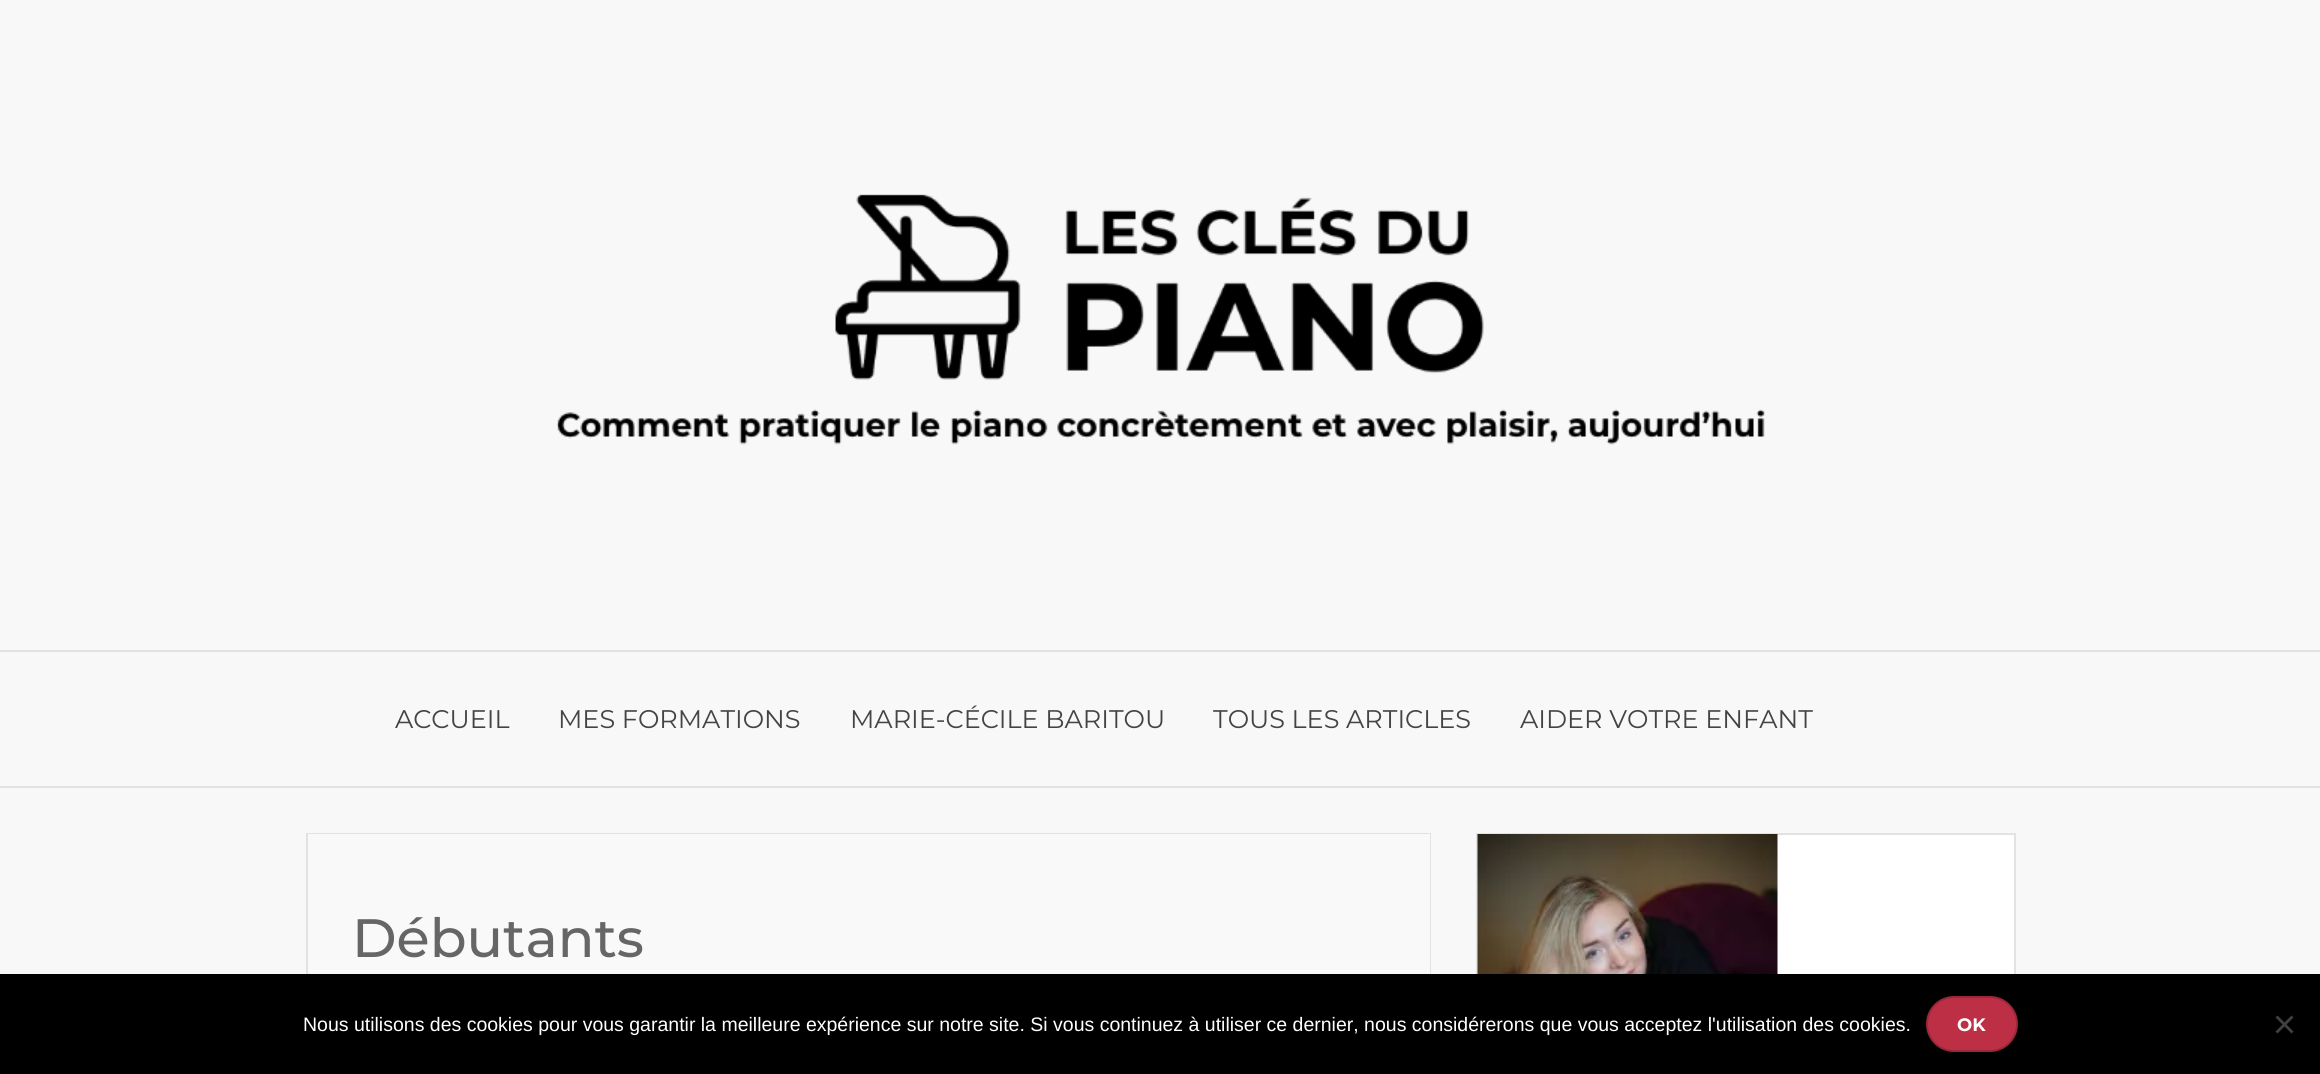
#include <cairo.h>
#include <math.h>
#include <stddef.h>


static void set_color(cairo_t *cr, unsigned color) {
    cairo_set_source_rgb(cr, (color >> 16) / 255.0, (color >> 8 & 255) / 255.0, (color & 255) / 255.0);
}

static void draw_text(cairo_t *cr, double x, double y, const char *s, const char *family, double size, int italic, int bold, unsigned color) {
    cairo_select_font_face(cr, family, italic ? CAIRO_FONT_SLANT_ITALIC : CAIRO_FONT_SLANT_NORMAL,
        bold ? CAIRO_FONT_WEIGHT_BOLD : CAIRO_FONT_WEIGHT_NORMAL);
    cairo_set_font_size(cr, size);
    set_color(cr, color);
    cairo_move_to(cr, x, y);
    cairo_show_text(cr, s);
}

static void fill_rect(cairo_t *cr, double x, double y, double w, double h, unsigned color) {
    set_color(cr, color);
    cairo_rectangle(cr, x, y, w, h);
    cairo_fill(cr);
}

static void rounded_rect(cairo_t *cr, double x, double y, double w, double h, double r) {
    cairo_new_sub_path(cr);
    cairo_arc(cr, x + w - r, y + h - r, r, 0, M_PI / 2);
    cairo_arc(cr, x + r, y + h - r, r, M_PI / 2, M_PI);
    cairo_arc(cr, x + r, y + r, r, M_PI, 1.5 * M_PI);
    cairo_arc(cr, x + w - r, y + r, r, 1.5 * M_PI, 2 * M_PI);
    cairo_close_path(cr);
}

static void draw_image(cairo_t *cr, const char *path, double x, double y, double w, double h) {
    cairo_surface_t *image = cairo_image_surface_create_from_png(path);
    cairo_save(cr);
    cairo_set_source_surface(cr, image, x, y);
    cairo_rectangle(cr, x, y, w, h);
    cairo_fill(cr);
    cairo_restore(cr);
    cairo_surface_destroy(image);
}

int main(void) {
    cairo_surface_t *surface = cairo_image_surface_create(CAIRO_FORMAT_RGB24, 2320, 1074);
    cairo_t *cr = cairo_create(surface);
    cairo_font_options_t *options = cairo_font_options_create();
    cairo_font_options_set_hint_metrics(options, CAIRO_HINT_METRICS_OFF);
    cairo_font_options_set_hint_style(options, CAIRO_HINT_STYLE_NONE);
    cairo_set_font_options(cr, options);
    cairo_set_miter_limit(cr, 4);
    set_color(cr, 0xF8F8F8);
    cairo_paint(cr);
    draw_image(cr, "assets/img1.png", 556, 194, 1209, 251);
    fill_rect(cr, 0, 650, 2320, 2, 0xE2E2E2);
    fill_rect(cr, 0, 786, 2320, 2, 0xE2E2E2);
    draw_text(cr, 395, 728, "ACCUEIL", "Montserrat", 25.5, 0, 0, 0x444444);
    draw_text(cr, 558, 728, "MES FORMATIONS", "Montserrat", 25.5, 0, 0, 0x444444);
    draw_text(cr, 850, 728, "MARIE-CÉCILE BARITOU", "Montserrat", 25.5, 0, 0, 0x444444);
    draw_text(cr, 1213, 728, "TOUS LES ARTICLES", "Montserrat", 25.5, 0, 0, 0x444444);
    draw_text(cr, 1520, 728, "AIDER VOTRE ENFANT", "Montserrat", 25.5, 0, 0, 0x444444);
    cairo_rectangle(cr, 307, 834, 1123, 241);
    set_color(cr, 0xE2E2E2);
    cairo_stroke(cr);
    fill_rect(cr, 308, 834, 1122, 140, 0xF9F9F9);
    draw_text(cr, 352, 957, "Débutants", "Montserrat Medium", 54, 0, 0, 0x666666);
    fill_rect(cr, 1777, 835, 237, 139, 0xFFFFFF);
    cairo_rectangle(cr, 1477, 834, 538, 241);
    set_color(cr, 0xE2E2E2);
    cairo_stroke(cr);
    draw_image(cr, "assets/img2.png", 1477, 834, 301, 140);
    fill_rect(cr, 0, 974, 2320, 100, 0x000000);
    draw_text(cr, 303, 1031, "Nous utilisons des cookies pour vous garantir la meilleure expérience sur notre site. Si vous continuez à utiliser ce dernier, nous considérerons que vous acceptez l'utilisation des cookies.", "Liberation Sans", 19.5, 0, 0, 0xFFFFFF);
    set_color(cr, 0xBD2F45);
    rounded_rect(cr, 1927, 997, 90, 54, 27);
    cairo_fill_preserve(cr);
    set_color(cr, 0x9C2739);
    cairo_stroke(cr);
    draw_text(cr, 1957, 1031, "OK", "Montserrat", 18, 0, 1, 0xFFFFFF);
    set_color(cr, 0x404040);
    cairo_new_path(cr);
    cairo_move_to(cr, 2291.5, 1015.5);
    cairo_line_to(cr, 2293.5, 1017.5);
    cairo_line_to(cr, 2277.5, 1033.5);
    cairo_line_to(cr, 2275.5, 1031.5);
    cairo_close_path(cr);
    cairo_fill(cr);
    cairo_new_path(cr);
    cairo_move_to(cr, 2275.5, 1017.5);
    cairo_line_to(cr, 2277.5, 1015.5);
    cairo_line_to(cr, 2293.5, 1031.5);
    cairo_line_to(cr, 2291.5, 1033.5);
    cairo_close_path(cr);
    cairo_fill(cr);
    cairo_surface_write_to_png(surface, "output.png");
    cairo_font_options_destroy(options);
    cairo_destroy(cr);
    cairo_surface_destroy(surface);
    return 0;
}
